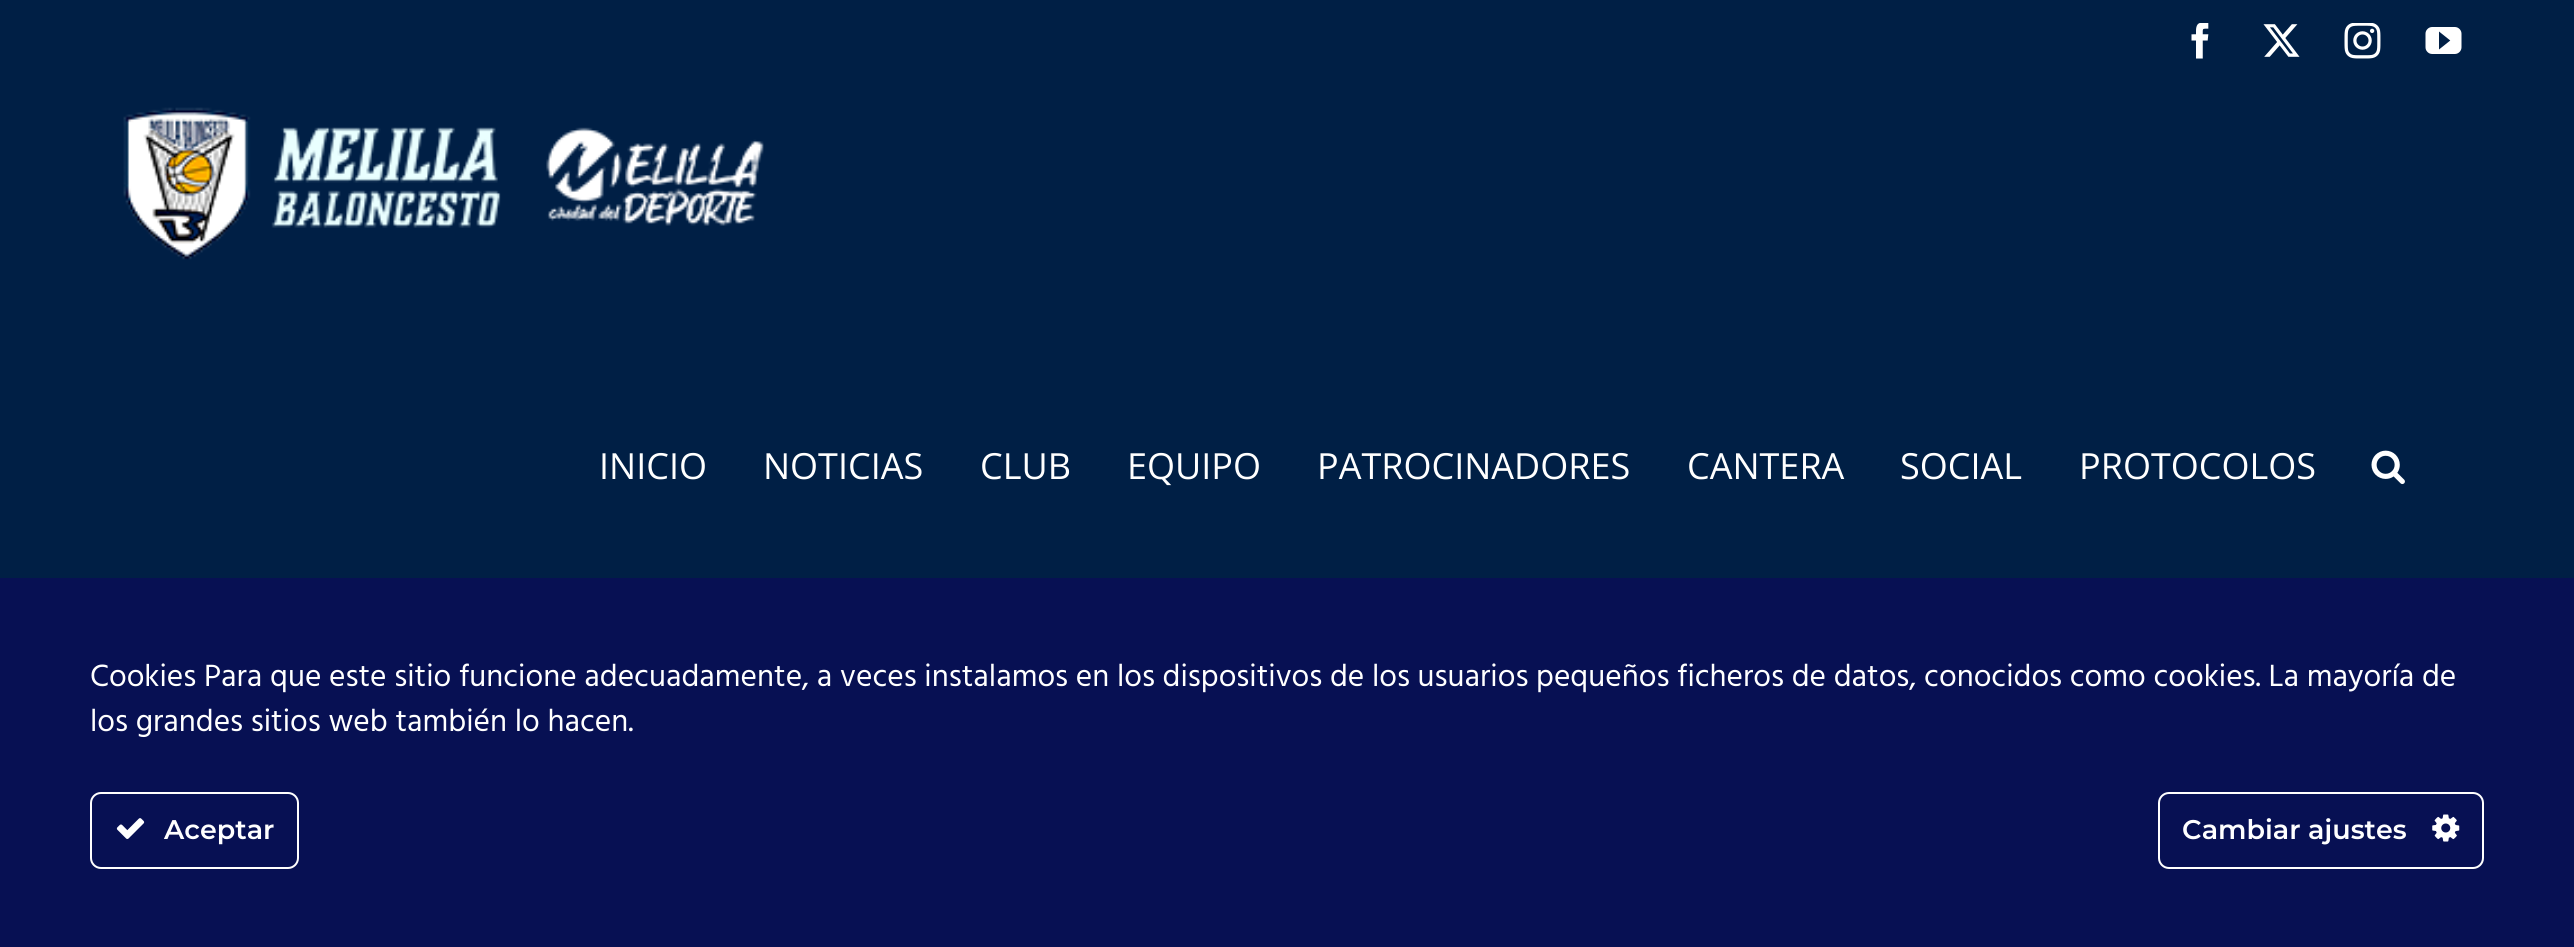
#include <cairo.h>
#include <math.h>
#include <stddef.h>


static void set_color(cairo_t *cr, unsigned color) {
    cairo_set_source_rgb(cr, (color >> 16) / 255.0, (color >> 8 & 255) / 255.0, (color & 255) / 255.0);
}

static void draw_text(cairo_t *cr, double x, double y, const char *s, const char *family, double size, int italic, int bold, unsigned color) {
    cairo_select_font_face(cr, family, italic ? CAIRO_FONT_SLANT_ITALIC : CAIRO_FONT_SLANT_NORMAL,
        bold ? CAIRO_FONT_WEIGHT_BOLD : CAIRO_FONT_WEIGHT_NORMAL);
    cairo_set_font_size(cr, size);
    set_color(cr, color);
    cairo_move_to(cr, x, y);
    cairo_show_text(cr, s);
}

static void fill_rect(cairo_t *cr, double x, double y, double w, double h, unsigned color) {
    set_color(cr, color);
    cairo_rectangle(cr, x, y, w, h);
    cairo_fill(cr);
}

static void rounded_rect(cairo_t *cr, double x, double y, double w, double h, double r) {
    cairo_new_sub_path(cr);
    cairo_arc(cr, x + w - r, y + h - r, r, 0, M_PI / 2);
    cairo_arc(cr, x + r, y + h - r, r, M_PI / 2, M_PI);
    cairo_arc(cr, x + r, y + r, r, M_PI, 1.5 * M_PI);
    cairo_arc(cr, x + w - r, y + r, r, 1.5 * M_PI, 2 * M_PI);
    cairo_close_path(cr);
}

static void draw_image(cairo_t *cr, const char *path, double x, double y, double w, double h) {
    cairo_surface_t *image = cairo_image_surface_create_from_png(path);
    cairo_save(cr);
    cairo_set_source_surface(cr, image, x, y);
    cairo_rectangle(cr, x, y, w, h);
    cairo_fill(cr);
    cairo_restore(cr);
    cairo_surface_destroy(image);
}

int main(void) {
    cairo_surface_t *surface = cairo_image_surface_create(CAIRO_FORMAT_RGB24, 2574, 947);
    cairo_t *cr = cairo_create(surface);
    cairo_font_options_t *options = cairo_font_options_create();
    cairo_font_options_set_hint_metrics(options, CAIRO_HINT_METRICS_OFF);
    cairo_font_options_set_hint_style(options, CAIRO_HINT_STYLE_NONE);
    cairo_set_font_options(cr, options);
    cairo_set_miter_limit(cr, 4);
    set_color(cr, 0x001F45);
    cairo_paint(cr);
    draw_image(cr, "assets/img1.png", 2191, 23, 18, 36);
    draw_image(cr, "assets/img2.png", 2263, 24, 37, 33);
    draw_image(cr, "assets/img3.png", 2344, 23, 37, 36);
    draw_image(cr, "assets/img4.png", 2425, 27, 37, 27);
    draw_image(cr, "assets/img5.png", 123, 107, 641, 153);
    draw_text(cr, 599, 479, "INICIO", "Open Sans", 36, 0, 0, 0xFFFFFF);
    draw_text(cr, 763, 479, "NOTICIAS", "Open Sans", 36, 0, 0, 0xFFFFFF);
    draw_text(cr, 980, 479, "CLUB", "Open Sans", 36, 0, 0, 0xFFFFFF);
    draw_text(cr, 1127, 479, "EQUIPO", "Open Sans", 36, 0, 0, 0xFFFFFF);
    draw_text(cr, 1317, 479, "PATROCINADORES", "Open Sans", 36, 0, 0, 0xFFFFFF);
    draw_text(cr, 1687, 479, "CANTERA", "Open Sans", 36, 0, 0, 0xFFFFFF);
    draw_text(cr, 1900, 479, "SOCIAL", "Open Sans", 36, 0, 0, 0xFFFFFF);
    draw_text(cr, 2079, 479, "PROTOCOLOS", "Open Sans", 36, 0, 0, 0xFFFFFF);
    draw_image(cr, "assets/img6.png", 2371, 450, 34, 35);
    fill_rect(cr, 0, 578, 2574, 369, 0x071053);
    draw_text(cr, 90, 686, "Cookies Para que este sitio funcione adecuadamente, a veces instalamos en los dispositivos de los usuarios pequeños ficheros de datos, conocidos como cookies. La mayoría de", "Hind", 31.5, 0, 0, 0xFFFFFF);
    draw_text(cr, 90, 731, "los grandes sitios web también lo hacen.", "Hind", 31.5, 0, 0, 0xFFFFFF);
    rounded_rect(cr, 91, 793, 207, 75, 10);
    cairo_stroke(cr);
    draw_image(cr, "assets/img7.png", 116, 818, 29, 21);
    draw_text(cr, 164, 839, "Aceptar", "Montserrat SemiBold", 27, 0, 0, 0xFFFFFF);
    rounded_rect(cr, 2159, 793, 324, 75, 10);
    cairo_stroke(cr);
    draw_text(cr, 2182, 839, "Cambiar ajustes", "Montserrat SemiBold", 27, 0, 0, 0xFFFFFF);
    draw_image(cr, "assets/img8.png", 2432, 814, 28, 28);
    cairo_surface_write_to_png(surface, "output.png");
    cairo_font_options_destroy(options);
    cairo_destroy(cr);
    cairo_surface_destroy(surface);
    return 0;
}
